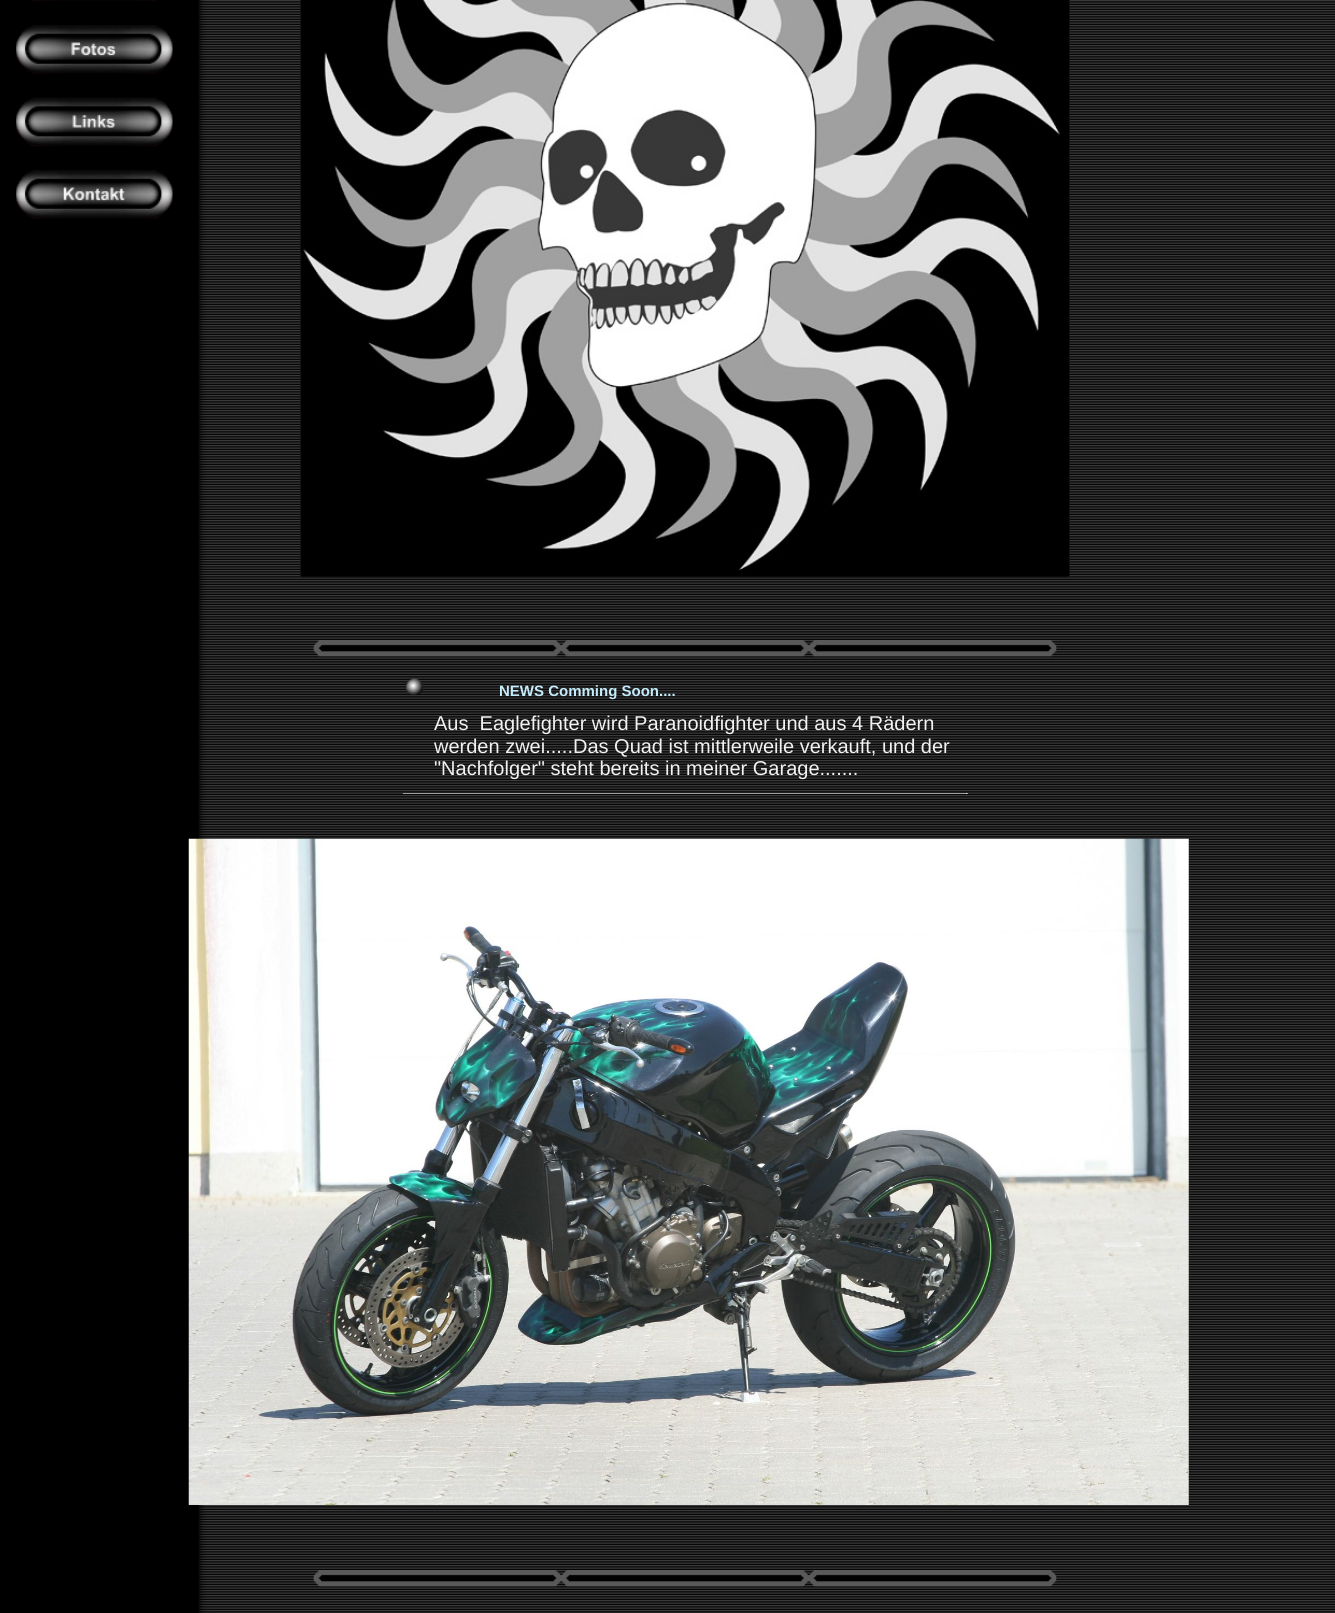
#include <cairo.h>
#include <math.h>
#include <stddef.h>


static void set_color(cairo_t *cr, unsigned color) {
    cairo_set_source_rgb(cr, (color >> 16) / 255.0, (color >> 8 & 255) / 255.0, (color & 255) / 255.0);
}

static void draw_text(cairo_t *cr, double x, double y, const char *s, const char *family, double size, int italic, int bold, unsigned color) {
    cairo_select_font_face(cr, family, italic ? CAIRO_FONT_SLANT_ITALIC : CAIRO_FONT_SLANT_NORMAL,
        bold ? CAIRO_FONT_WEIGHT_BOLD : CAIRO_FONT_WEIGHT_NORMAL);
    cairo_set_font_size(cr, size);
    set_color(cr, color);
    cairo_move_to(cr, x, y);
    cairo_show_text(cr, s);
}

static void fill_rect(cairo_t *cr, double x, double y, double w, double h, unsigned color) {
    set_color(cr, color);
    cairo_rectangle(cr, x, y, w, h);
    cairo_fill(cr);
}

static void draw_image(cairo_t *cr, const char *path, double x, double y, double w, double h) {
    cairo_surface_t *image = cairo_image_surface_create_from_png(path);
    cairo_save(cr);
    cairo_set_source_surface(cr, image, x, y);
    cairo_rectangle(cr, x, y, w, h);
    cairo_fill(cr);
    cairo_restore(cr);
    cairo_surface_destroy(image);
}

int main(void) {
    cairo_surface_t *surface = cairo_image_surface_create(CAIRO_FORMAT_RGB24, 1335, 1613);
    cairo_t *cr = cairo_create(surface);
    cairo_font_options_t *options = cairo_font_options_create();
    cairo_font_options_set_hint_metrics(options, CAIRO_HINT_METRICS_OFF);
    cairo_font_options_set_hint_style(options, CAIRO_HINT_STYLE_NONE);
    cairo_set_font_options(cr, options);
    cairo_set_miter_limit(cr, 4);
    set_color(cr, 0x000000);
    cairo_paint(cr);
    draw_image(cr, "assets/img1.png", 198, 0, 1137, 1613);
    draw_image(cr, "assets/img2.png", 32, 0, 125, 2);
    draw_image(cr, "assets/img3.png", 16, 25, 157, 49);
    draw_image(cr, "assets/img4.png", 16, 97, 157, 50);
    draw_image(cr, "assets/img5.png", 16, 170, 157, 49);
    draw_image(cr, "assets/img6.png", 300, 0, 770, 578);
    draw_image(cr, "assets/img7.png", 313, 640, 744, 17);
    draw_image(cr, "assets/img8.png", 406, 678, 17, 18);
    draw_text(cr, 499, 696, "NEWS Comming Soon....", "Liberation Sans", 15, 0, 1, 0xC5ECFB);
    draw_text(cr, 434, 730, "Aus  Eaglefighter wird Paranoidfighter und aus 4 Rädern", "Liberation Sans", 20, 0, 0, 0xF2F2F2);
    draw_text(cr, 434, 753, "werden zwei.....Das Quad ist mittlerweile verkauft, und der", "Liberation Sans", 20, 0, 0, 0xF2F2F2);
    draw_text(cr, 434, 775, "\"Nachfolger\" steht bereits in meiner Garage.......", "Liberation Sans", 20, 0, 0, 0xF2F2F2);
    fill_rect(cr, 403, 793, 565, 1, 0x9F9F9F);
    fill_rect(cr, 966, 793, 1, 1, 0xEEEEEE);
    draw_image(cr, "assets/img9.png", 188, 838, 1001, 667);
    draw_image(cr, "assets/img7.png", 313, 1570, 744, 17);
    cairo_surface_write_to_png(surface, "output.png");
    cairo_font_options_destroy(options);
    cairo_destroy(cr);
    cairo_surface_destroy(surface);
    return 0;
}
